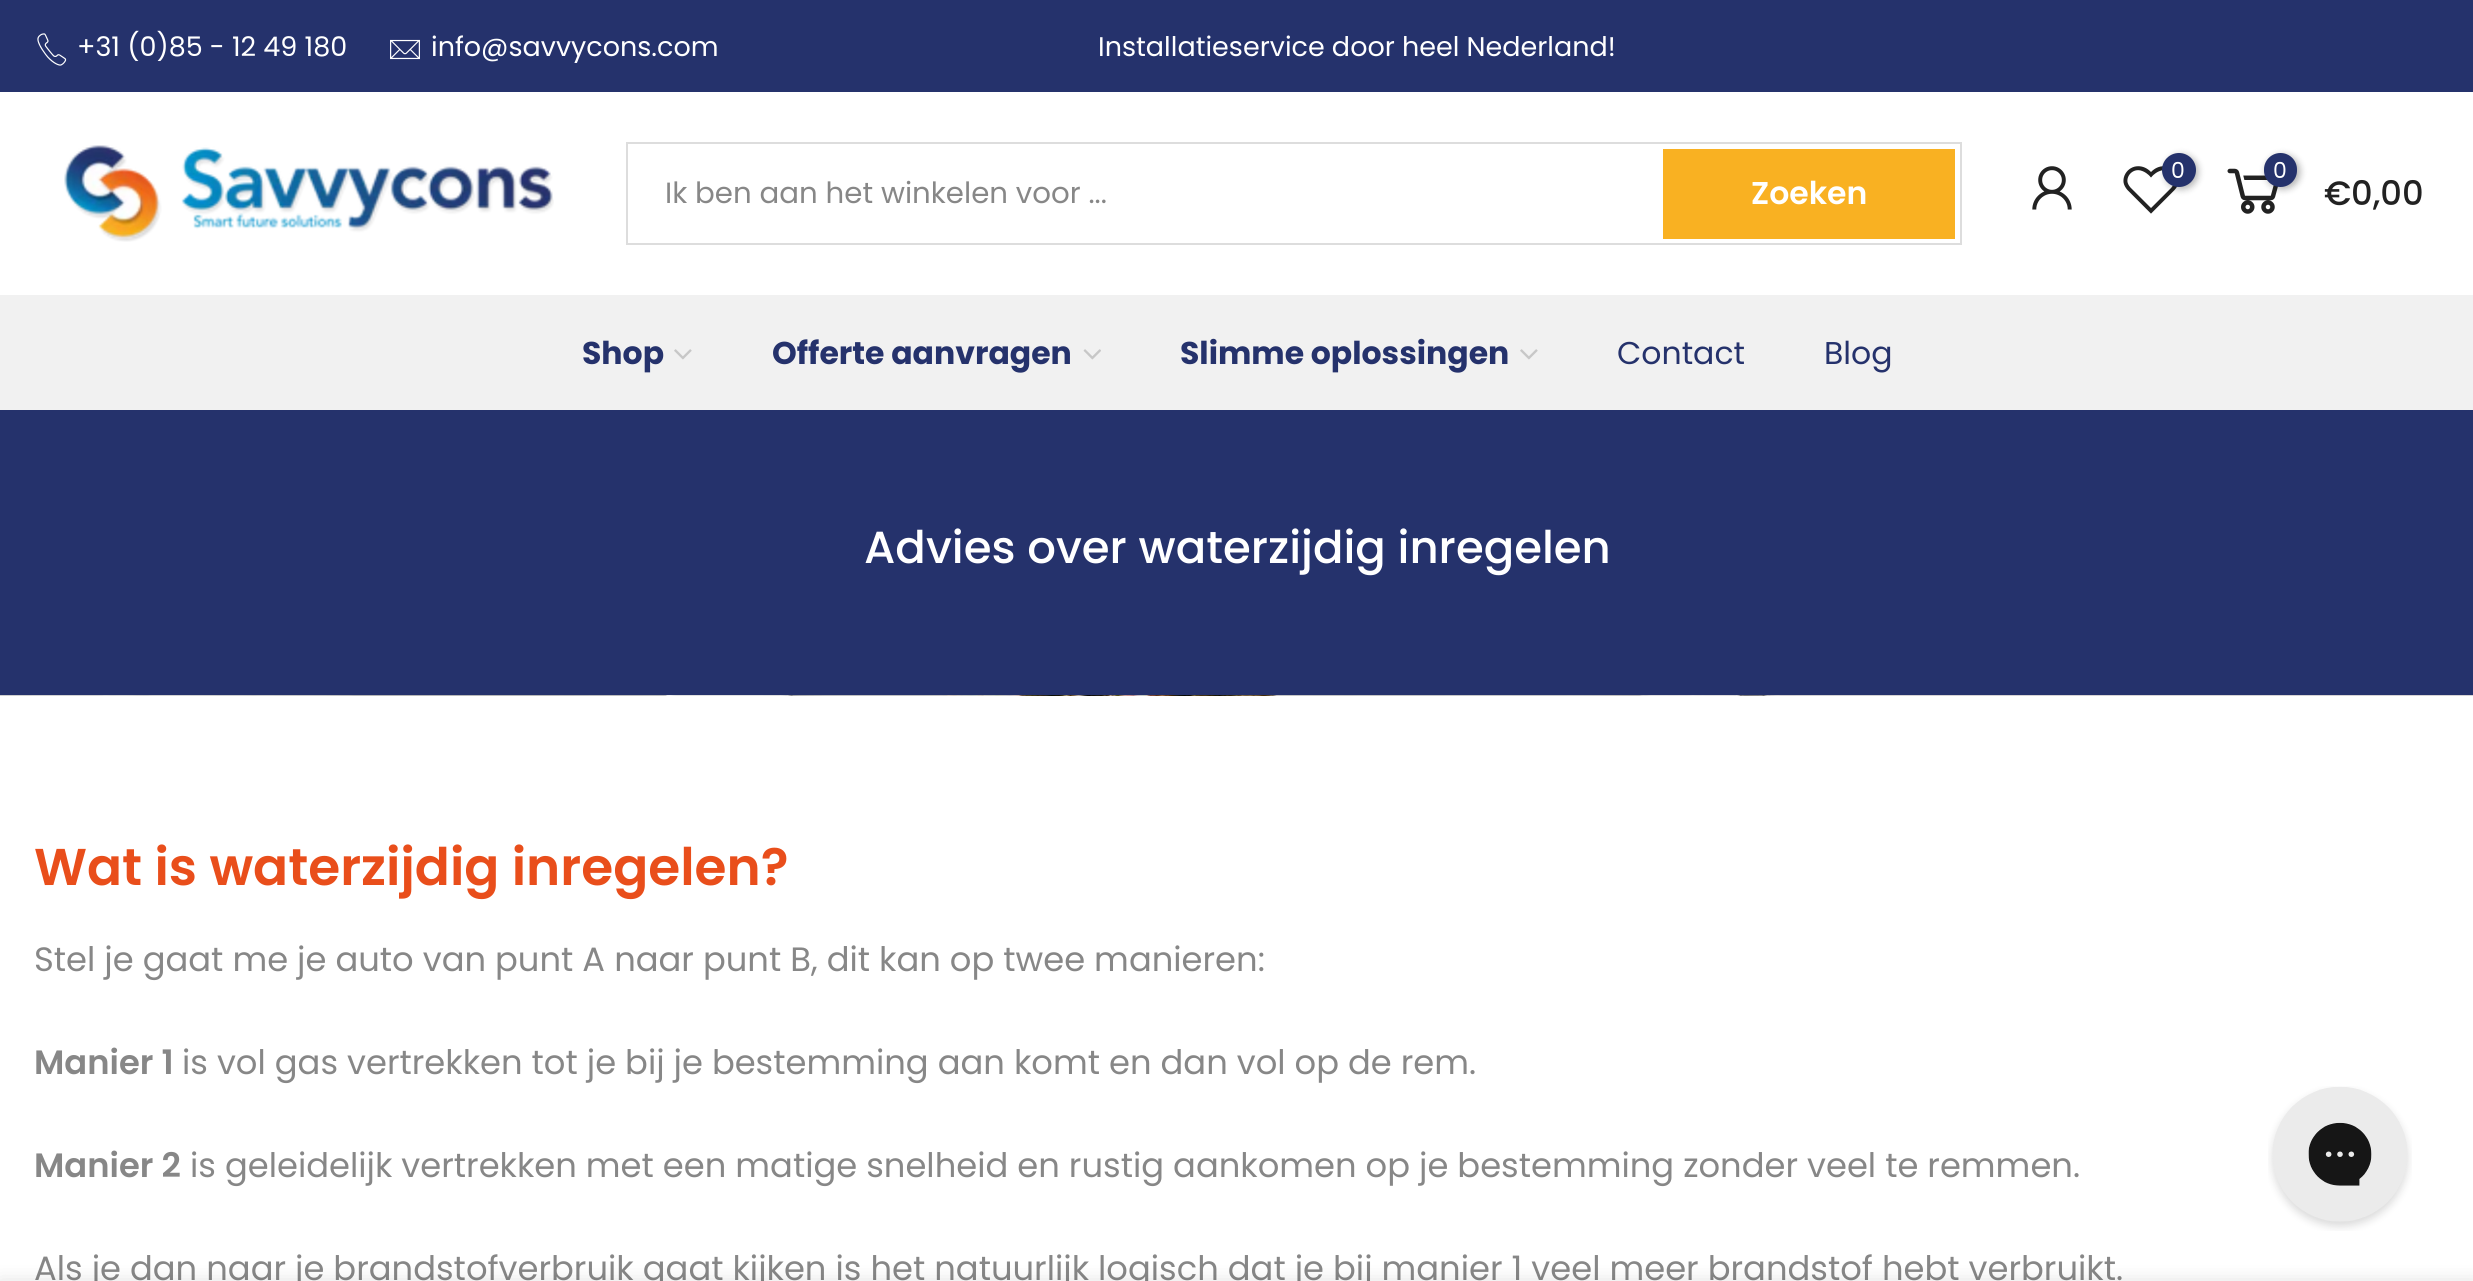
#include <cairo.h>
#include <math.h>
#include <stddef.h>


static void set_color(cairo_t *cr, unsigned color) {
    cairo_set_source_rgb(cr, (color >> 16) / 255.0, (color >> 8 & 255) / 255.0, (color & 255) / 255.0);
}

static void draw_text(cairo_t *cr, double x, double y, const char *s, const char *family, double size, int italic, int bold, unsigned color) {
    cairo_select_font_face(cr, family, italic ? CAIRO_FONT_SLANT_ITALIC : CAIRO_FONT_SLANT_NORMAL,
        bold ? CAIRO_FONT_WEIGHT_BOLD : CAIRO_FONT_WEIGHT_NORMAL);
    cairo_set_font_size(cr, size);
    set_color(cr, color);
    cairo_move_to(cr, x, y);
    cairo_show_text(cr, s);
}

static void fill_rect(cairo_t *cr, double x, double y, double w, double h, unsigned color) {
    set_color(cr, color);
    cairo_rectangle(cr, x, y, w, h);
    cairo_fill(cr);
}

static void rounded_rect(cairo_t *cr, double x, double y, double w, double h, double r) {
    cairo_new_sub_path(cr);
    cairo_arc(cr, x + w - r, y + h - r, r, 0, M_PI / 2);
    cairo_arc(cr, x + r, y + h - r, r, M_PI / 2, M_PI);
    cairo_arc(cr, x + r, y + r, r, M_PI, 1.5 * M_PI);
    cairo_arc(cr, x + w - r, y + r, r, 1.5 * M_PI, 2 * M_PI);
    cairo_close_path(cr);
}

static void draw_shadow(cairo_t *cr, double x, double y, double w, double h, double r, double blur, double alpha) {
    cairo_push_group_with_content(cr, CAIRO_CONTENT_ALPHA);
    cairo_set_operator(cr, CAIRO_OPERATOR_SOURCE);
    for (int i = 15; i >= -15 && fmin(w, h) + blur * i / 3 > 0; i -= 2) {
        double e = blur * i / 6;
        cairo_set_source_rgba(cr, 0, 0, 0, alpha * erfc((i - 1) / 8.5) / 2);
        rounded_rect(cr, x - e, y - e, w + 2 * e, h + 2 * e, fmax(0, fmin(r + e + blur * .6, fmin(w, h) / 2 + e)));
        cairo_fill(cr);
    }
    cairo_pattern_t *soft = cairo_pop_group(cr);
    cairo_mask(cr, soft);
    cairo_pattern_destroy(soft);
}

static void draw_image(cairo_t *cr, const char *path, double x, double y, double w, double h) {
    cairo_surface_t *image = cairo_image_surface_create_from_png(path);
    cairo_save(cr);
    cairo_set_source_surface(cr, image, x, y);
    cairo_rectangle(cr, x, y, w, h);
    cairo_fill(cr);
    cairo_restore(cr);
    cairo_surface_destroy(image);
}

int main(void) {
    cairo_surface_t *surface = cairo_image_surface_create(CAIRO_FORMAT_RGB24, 2473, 1281);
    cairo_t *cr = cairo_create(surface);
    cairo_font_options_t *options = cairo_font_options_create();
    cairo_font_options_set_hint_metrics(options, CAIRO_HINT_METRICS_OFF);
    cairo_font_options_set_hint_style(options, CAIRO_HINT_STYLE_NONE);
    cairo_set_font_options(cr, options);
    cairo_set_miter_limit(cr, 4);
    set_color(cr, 0xFFFFFF);
    cairo_paint(cr);
    fill_rect(cr, 0, 0, 2473, 92, 0x25326C);
    draw_image(cr, "assets/img1.png", 37, 33, 30, 33);
    draw_text(cr, 77, 56, "+31 (0)85 - 12 49 180", "Poppins", 27, 0, 0, 0xFFFFFF);
    draw_image(cr, "assets/img2.png", 390, 39, 30, 21);
    draw_text(cr, 431, 56, "info@savvycons.com", "Poppins", 27, 0, 0, 0xFFFFFF);
    draw_text(cr, 1098, 56, "Installatieservice door heel Nederland!", "Poppins", 27, 0, 0, 0xFFFFFF);
    draw_image(cr, "assets/img3.png", 64, 145, 490, 97);
    cairo_rectangle(cr, 627, 143, 1334, 101);
    set_color(cr, 0xDDDDDD);
    cairo_stroke(cr);
    draw_text(cr, 665, 203, "Ik ben aan het winkelen voor ...", "Poppins", 29.25, 0, 0, 0x878787);
    fill_rect(cr, 1663, 149, 292, 90, 0xF9B122);
    draw_text(cr, 1751, 204, "Zoeken", "Poppins SemiBold", 31.5, 0, 0, 0xFFFFFF);
    draw_image(cr, "assets/img4.png", 2032, 166, 40, 44);
    draw_image(cr, "assets/img5.png", 2123, 166, 55, 48);
    set_color(cr, 0x000000);
    draw_shadow(cr, 2165, 155, 33, 34, 16.5, 3.5, 0.3);
    set_color(cr, 0x25326C);
    cairo_arc(cr, 2179, 170, 17, 0, 2 * M_PI);
    cairo_fill(cr);
    draw_text(cr, 2171, 178, "0", "Poppins", 22, 0, 0, 0xFFFFFF);
    draw_image(cr, "assets/img6.png", 2227, 168, 51, 46);
    set_color(cr, 0x000000);
    draw_shadow(cr, 2266, 155, 34, 34, 17, 3.5, 0.3);
    set_color(cr, 0x25326C);
    rounded_rect(cr, 2264, 153, 33, 34, 16.5);
    cairo_fill(cr);
    draw_text(cr, 2273, 178, "0", "Poppins", 22, 0, 0, 0xFFFFFF);
    draw_text(cr, 2324, 205, "€0,00", "Poppins Medium", 33.75, 0, 0, 0x222222);
    fill_rect(cr, 0, 295, 2473, 115, 0xF1F1F1);
    draw_text(cr, 582, 364, "Shop", "Poppins", 31.5, 0, 1, 0x25326C);
    draw_image(cr, "assets/img7.png", 674, 349, 18, 11);
    draw_text(cr, 772, 364, "Offerte aanvragen", "Poppins", 31.5, 0, 1, 0x25326C);
    draw_image(cr, "assets/img8.png", 1083, 349, 18, 11);
    draw_text(cr, 1180, 364, "Slimme oplossingen", "Poppins", 31.5, 0, 1, 0x25326C);
    draw_image(cr, "assets/img7.png", 1520, 349, 18, 11);
    draw_text(cr, 1617, 364, "Contact", "Poppins", 31.5, 0, 0, 0x25326C);
    draw_text(cr, 1824, 364, "Blog", "Poppins", 31.5, 0, 0, 0x25326C);
    fill_rect(cr, 0, 410, 2473, 285, 0x25326C);
    draw_text(cr, 864, 563, "Advies over waterzijdig inregelen", "Poppins Medium", 45, 0, 0, 0xFFFFFF);
    draw_image(cr, "assets/img9.png", 0, 695, 2473, 1);
    draw_text(cr, 34, 885, "Wat is waterzijdig inregelen?", "Poppins SemiBold", 51.75, 0, 0, 0xE94E1B);
    draw_text(cr, 34, 971, "Stel je gaat me je auto van punt A naar punt B, dit kan op twee manieren:", "Poppins", 33.75, 0, 0, 0x878787);
    draw_text(cr, 34, 1074, "Manier 1", "Poppins SemiBold", 33.75, 0, 0, 0x878787);
    draw_text(cr, 182, 1074, "is vol gas vertrekken tot je bij je bestemming aan komt en dan vol op de rem.", "Poppins", 33.75, 0, 0, 0x878787);
    draw_text(cr, 34, 1177, "Manier 2", "Poppins SemiBold", 33.75, 0, 0, 0x878787);
    draw_text(cr, 190, 1177, "is geleidelijk vertrekken met een matige snelheid en rustig aankomen op je bestemming zonder veel te remmen.", "Poppins", 33.75, 0, 0, 0x878787);
    draw_text(cr, 34, 1280, "Als je dan naar je brandstofverbruik gaat kijken is het natuurlijk logisch dat je bij manier 1 veel meer brandstof hebt verbruikt.", "Poppins", 33.75, 0, 0, 0x878787);
    draw_image(cr, "assets/img10.png", 2268, 1086, 144, 145);
    set_color(cr, 0x000000);
    draw_shadow(cr, 0, 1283, 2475, 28, 0, 10, 0.14);
    cairo_surface_write_to_png(surface, "output.png");
    cairo_font_options_destroy(options);
    cairo_destroy(cr);
    cairo_surface_destroy(surface);
    return 0;
}
